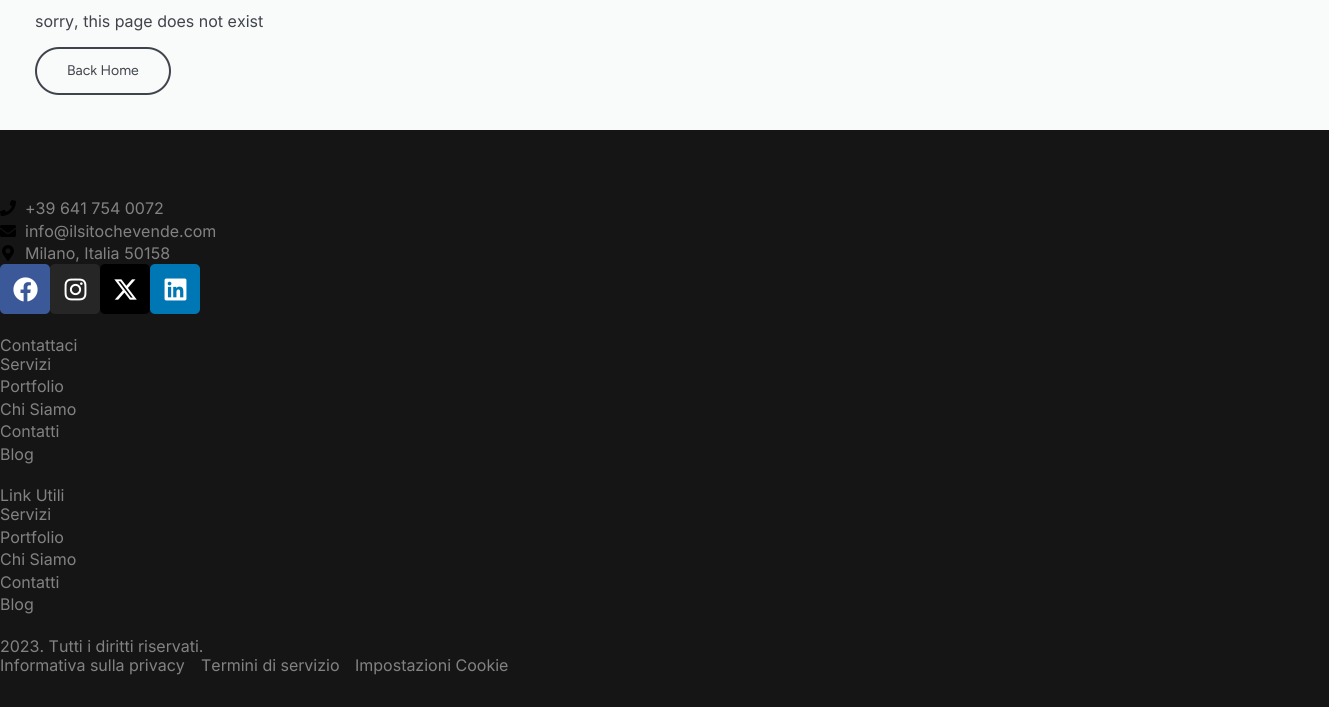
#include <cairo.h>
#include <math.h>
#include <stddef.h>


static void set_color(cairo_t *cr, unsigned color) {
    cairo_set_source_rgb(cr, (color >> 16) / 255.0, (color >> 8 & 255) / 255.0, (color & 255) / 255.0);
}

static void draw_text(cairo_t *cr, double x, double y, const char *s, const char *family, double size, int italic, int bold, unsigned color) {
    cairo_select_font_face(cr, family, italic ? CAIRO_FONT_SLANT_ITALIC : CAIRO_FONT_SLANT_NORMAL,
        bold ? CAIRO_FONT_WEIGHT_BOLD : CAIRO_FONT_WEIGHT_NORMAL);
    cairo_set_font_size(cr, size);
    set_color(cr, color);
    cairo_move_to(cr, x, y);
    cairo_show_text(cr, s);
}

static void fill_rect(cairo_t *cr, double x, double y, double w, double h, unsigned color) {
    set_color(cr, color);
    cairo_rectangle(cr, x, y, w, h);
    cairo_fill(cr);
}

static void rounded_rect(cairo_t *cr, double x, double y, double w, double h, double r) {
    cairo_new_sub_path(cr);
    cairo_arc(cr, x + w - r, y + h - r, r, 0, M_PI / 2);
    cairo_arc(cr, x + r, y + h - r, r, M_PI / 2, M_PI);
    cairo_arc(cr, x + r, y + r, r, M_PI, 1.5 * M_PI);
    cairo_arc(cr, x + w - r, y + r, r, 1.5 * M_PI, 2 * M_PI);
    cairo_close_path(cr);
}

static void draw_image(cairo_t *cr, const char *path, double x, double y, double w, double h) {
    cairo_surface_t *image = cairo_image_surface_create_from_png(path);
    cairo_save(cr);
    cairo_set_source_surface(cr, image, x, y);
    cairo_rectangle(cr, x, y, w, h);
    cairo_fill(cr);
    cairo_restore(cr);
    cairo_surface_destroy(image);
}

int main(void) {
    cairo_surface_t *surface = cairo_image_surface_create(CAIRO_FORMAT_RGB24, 1329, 707);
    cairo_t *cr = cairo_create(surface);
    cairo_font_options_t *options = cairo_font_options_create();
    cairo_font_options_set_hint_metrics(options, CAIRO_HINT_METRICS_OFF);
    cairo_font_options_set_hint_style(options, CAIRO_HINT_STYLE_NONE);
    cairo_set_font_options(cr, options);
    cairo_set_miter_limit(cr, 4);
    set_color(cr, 0x151515);
    cairo_paint(cr);
    fill_rect(cr, 0, 0, 1329, 130, 0xF9FAFA);
    draw_text(cr, 35, 27, "sorry, this page does not exist", "Inter", 16, 0, 0, 0x3F444B);
    rounded_rect(cr, 36, 48, 134, 46, 23);
    cairo_stroke(cr);
    draw_text(cr, 67, 75, "Back Home", "Figtree", 14, 0, 0, 0x3F444B);
    draw_image(cr, "assets/img1.png", 0, 200, 16, 16);
    draw_text(cr, 25, 214, "+39 641 754 0072", "Inter", 16, 0, 0, 0x828282);
    draw_image(cr, "assets/img2.png", 0, 225, 16, 12);
    draw_text(cr, 25, 237, "info@ilsitochevende.com", "Inter", 16, 0, 0, 0x828282);
    draw_image(cr, "assets/img3.png", 2, 245, 12, 16);
    draw_text(cr, 25, 259, "Milano, Italia 50158", "Inter", 16, 0, 0, 0x828282);
    set_color(cr, 0x3B5998);
    rounded_rect(cr, 0, 264, 50, 50, 5);
    cairo_fill(cr);
    draw_image(cr, "assets/img4.png", 13, 277, 25, 25);
    set_color(cr, 0x262626);
    rounded_rect(cr, 50, 264, 50, 50, 5);
    cairo_fill(cr);
    draw_image(cr, "assets/img5.png", 64, 278, 23, 23);
    set_color(cr, 0x000000);
    rounded_rect(cr, 100, 264, 50, 50, 5);
    cairo_fill(cr);
    draw_image(cr, "assets/img6.png", 114, 279, 23, 21);
    set_color(cr, 0x0077B5);
    rounded_rect(cr, 150, 264, 50, 50, 5);
    cairo_fill(cr);
    draw_image(cr, "assets/img7.png", 164, 278, 23, 23);
    draw_text(cr, 0, 351, "Contattaci", "Inter", 16, 0, 0, 0x828282);
    draw_text(cr, 0, 370, "Servizi", "Inter", 16, 0, 0, 0x828282);
    draw_text(cr, 0, 392, "Portfolio", "Inter", 16, 0, 0, 0x828282);
    draw_text(cr, 0, 415, "Chi Siamo", "Inter", 16, 0, 0, 0x828282);
    draw_text(cr, 0, 437, "Contatti", "Inter", 16, 0, 0, 0x828282);
    draw_text(cr, 0, 460, "Blog", "Inter", 16, 0, 0, 0x828282);
    draw_text(cr, 0, 501, "Link Utili", "Inter", 16, 0, 0, 0x828282);
    draw_text(cr, 0, 520, "Servizi", "Inter", 16, 0, 0, 0x828282);
    draw_text(cr, 0, 543, "Portfolio", "Inter", 16, 0, 0, 0x828282);
    draw_text(cr, 0, 565, "Chi Siamo", "Inter", 16, 0, 0, 0x828282);
    draw_text(cr, 0, 588, "Contatti", "Inter", 16, 0, 0, 0x828282);
    draw_text(cr, 0, 610, "Blog", "Inter", 16, 0, 0, 0x828282);
    draw_text(cr, 0, 652, "2023. Tutti i diritti riservati.", "Inter", 16, 0, 0, 0x828282);
    draw_text(cr, 0, 671, "Informativa sulla privacy", "Inter", 16, 0, 0, 0x828282);
    draw_text(cr, 201, 671, "Termini di servizio", "Inter", 16, 0, 0, 0x828282);
    draw_text(cr, 355, 671, "Impostazioni Cookie", "Inter", 16, 0, 0, 0x828282);
    cairo_surface_write_to_png(surface, "output.png");
    cairo_font_options_destroy(options);
    cairo_destroy(cr);
    cairo_surface_destroy(surface);
    return 0;
}
